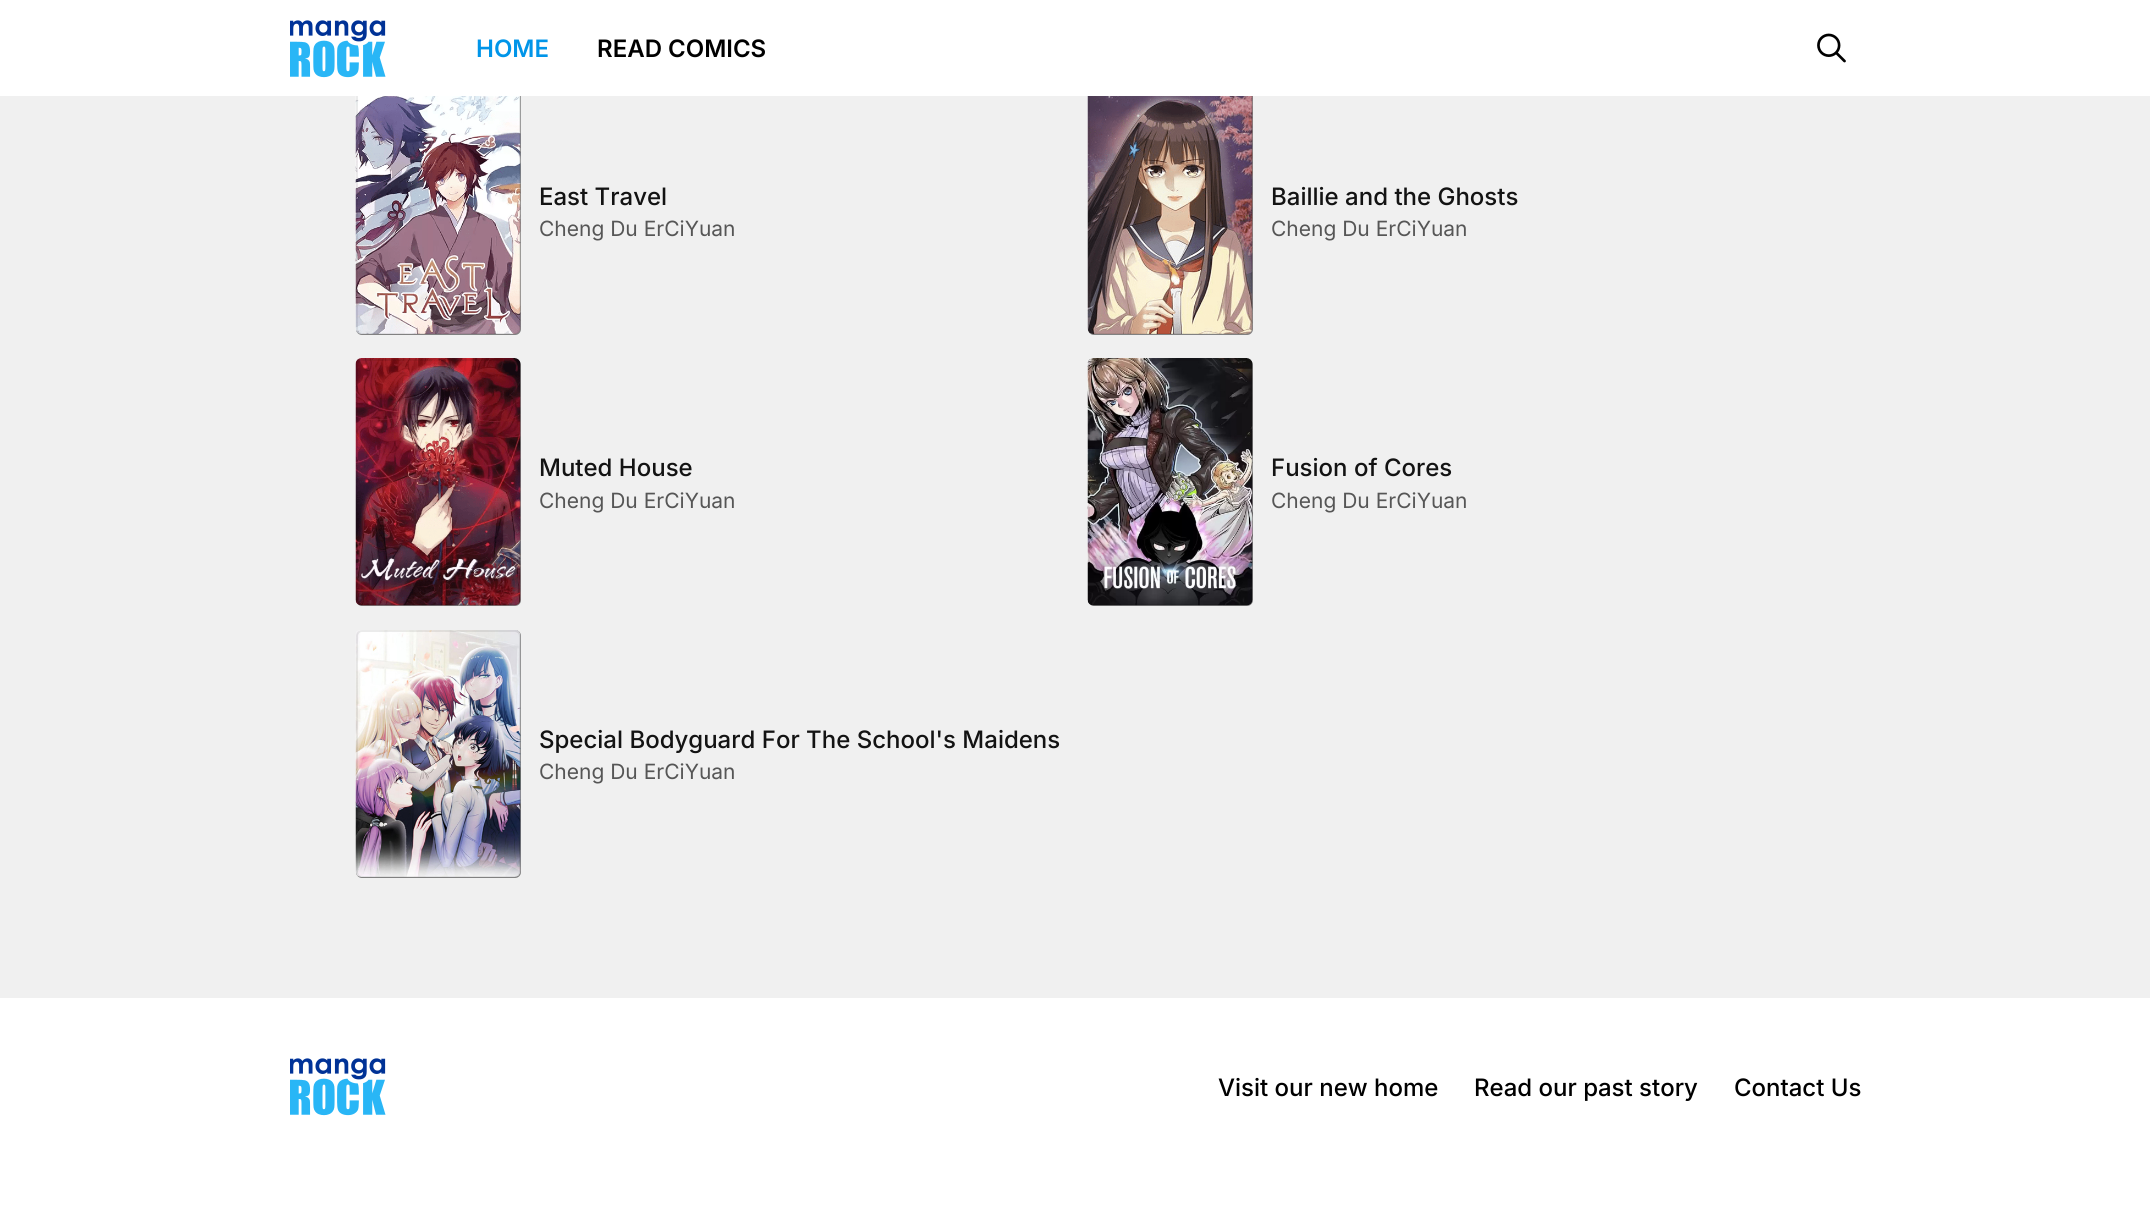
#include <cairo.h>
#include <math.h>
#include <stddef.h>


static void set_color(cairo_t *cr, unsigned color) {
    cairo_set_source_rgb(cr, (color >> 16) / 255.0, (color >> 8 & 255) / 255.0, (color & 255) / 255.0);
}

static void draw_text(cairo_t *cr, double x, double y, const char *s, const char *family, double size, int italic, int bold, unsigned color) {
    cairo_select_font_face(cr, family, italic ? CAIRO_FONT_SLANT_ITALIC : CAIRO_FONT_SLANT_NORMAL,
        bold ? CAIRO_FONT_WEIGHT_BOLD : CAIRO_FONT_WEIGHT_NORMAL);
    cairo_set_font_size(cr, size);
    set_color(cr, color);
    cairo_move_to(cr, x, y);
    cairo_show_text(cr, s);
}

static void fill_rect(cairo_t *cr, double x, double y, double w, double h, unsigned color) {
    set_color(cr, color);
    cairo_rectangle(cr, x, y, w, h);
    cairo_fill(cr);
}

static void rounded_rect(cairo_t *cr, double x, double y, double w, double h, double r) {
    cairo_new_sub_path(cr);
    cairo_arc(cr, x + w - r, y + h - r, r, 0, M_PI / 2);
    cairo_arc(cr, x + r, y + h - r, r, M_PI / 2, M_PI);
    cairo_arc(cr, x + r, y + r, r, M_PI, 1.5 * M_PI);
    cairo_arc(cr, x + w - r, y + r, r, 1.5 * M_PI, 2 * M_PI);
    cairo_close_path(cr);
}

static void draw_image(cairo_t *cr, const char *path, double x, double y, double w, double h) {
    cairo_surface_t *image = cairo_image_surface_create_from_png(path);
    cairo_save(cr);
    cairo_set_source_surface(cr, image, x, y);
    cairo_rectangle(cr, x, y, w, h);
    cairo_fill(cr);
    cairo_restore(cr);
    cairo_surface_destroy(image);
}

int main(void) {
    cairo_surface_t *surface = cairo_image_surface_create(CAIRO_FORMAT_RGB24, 2150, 1206);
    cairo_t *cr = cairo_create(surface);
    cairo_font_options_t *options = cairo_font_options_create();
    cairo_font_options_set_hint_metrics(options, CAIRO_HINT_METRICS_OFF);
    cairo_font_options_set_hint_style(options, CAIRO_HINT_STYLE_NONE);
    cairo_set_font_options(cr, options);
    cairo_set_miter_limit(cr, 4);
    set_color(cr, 0xFFFFFF);
    cairo_paint(cr);
    fill_rect(cr, 0, 96, 2150, 902, 0xF0F0F0);
    set_color(cr, 0x8C8C8C);
    rounded_rect(cr, 356, 87, 165, 248, 6);
    cairo_fill(cr);
    draw_image(cr, "assets/img3.png", 355, 96, 166, 238);
    rounded_rect(cr, 357, 88, 163, 246, 5);
    cairo_set_source_rgba(cr, 0, 0, 0, 0.08);
    cairo_stroke(cr);
    set_color(cr, 0x8C8C8C);
    rounded_rect(cr, 1088, 87, 165, 248, 6);
    cairo_fill(cr);
    draw_image(cr, "assets/img4.png", 1087, 96, 166, 238);
    rounded_rect(cr, 1089, 88, 163, 246, 5);
    cairo_set_source_rgba(cr, 0, 0, 0, 0.08);
    cairo_stroke(cr);
    fill_rect(cr, 356, 87, 897, 9, 0xFFFFFF);
    draw_image(cr, "assets/img1.png", 290, 20, 96, 58);
    draw_text(cr, 476, 57, "HOME", "Inter SemiBold", 24, 0, 0, 0x0095E9);
    draw_text(cr, 597, 57, "READ COMICS", "Inter SemiBold", 24, 0, 0, 0x000000);
    draw_image(cr, "assets/img2.png", 1817, 33, 29, 30);
    draw_text(cr, 539, 205, "East Travel", "Inter Medium", 24, 0, 0, 0x131313);
    draw_text(cr, 539, 236, "Cheng Du ErCiYuan", "Inter", 21, 0, 0, 0x565656);
    draw_text(cr, 1271, 205, "Baillie and the Ghosts", "Inter Medium", 24, 0, 0, 0x131313);
    draw_text(cr, 1271, 236, "Cheng Du ErCiYuan", "Inter", 21, 0, 0, 0x565656);
    set_color(cr, 0x8C8C8C);
    rounded_rect(cr, 356, 359, 165, 247, 6);
    cairo_fill(cr);
    draw_image(cr, "assets/img5.png", 355, 358, 166, 248);
    rounded_rect(cr, 357, 360, 163, 245, 5);
    cairo_set_source_rgba(cr, 0, 0, 0, 0.08);
    cairo_stroke(cr);
    draw_text(cr, 539, 476, "Muted House", "Inter Medium", 24, 0, 0, 0x131313);
    draw_text(cr, 539, 508, "Cheng Du ErCiYuan", "Inter", 21, 0, 0, 0x565656);
    set_color(cr, 0x8C8C8C);
    rounded_rect(cr, 1088, 359, 165, 247, 6);
    cairo_fill(cr);
    draw_image(cr, "assets/img6.png", 1087, 358, 166, 248);
    rounded_rect(cr, 1089, 360, 163, 245, 5);
    cairo_set_source_rgba(cr, 0, 0, 0, 0.08);
    cairo_stroke(cr);
    draw_text(cr, 1271, 476, "Fusion of Cores", "Inter Medium", 24, 0, 0, 0x131313);
    draw_text(cr, 1271, 508, "Cheng Du ErCiYuan", "Inter", 21, 0, 0, 0x565656);
    set_color(cr, 0x8C8C8C);
    rounded_rect(cr, 356, 630, 165, 248, 6);
    cairo_fill(cr);
    draw_image(cr, "assets/img7.png", 355, 630, 166, 247);
    rounded_rect(cr, 357, 631, 163, 246, 5);
    cairo_set_source_rgba(cr, 0, 0, 0, 0.08);
    cairo_stroke(cr);
    draw_text(cr, 539, 748, "Special Bodyguard For The School's Maidens", "Inter Medium", 24, 0, 0, 0x131313);
    draw_text(cr, 539, 779, "Cheng Du ErCiYuan", "Inter", 21, 0, 0, 0x565656);
    draw_image(cr, "assets/img1.png", 290, 1058, 96, 58);
    draw_text(cr, 1218, 1096, "Visit our new home", "Inter Medium", 24, 0, 0, 0x000000);
    draw_text(cr, 1474, 1096, "Read our past story", "Inter Medium", 24, 0, 0, 0x000000);
    draw_text(cr, 1734, 1096, "Contact Us", "Inter Medium", 24, 0, 0, 0x000000);
    cairo_surface_write_to_png(surface, "output.png");
    cairo_font_options_destroy(options);
    cairo_destroy(cr);
    cairo_surface_destroy(surface);
    return 0;
}
